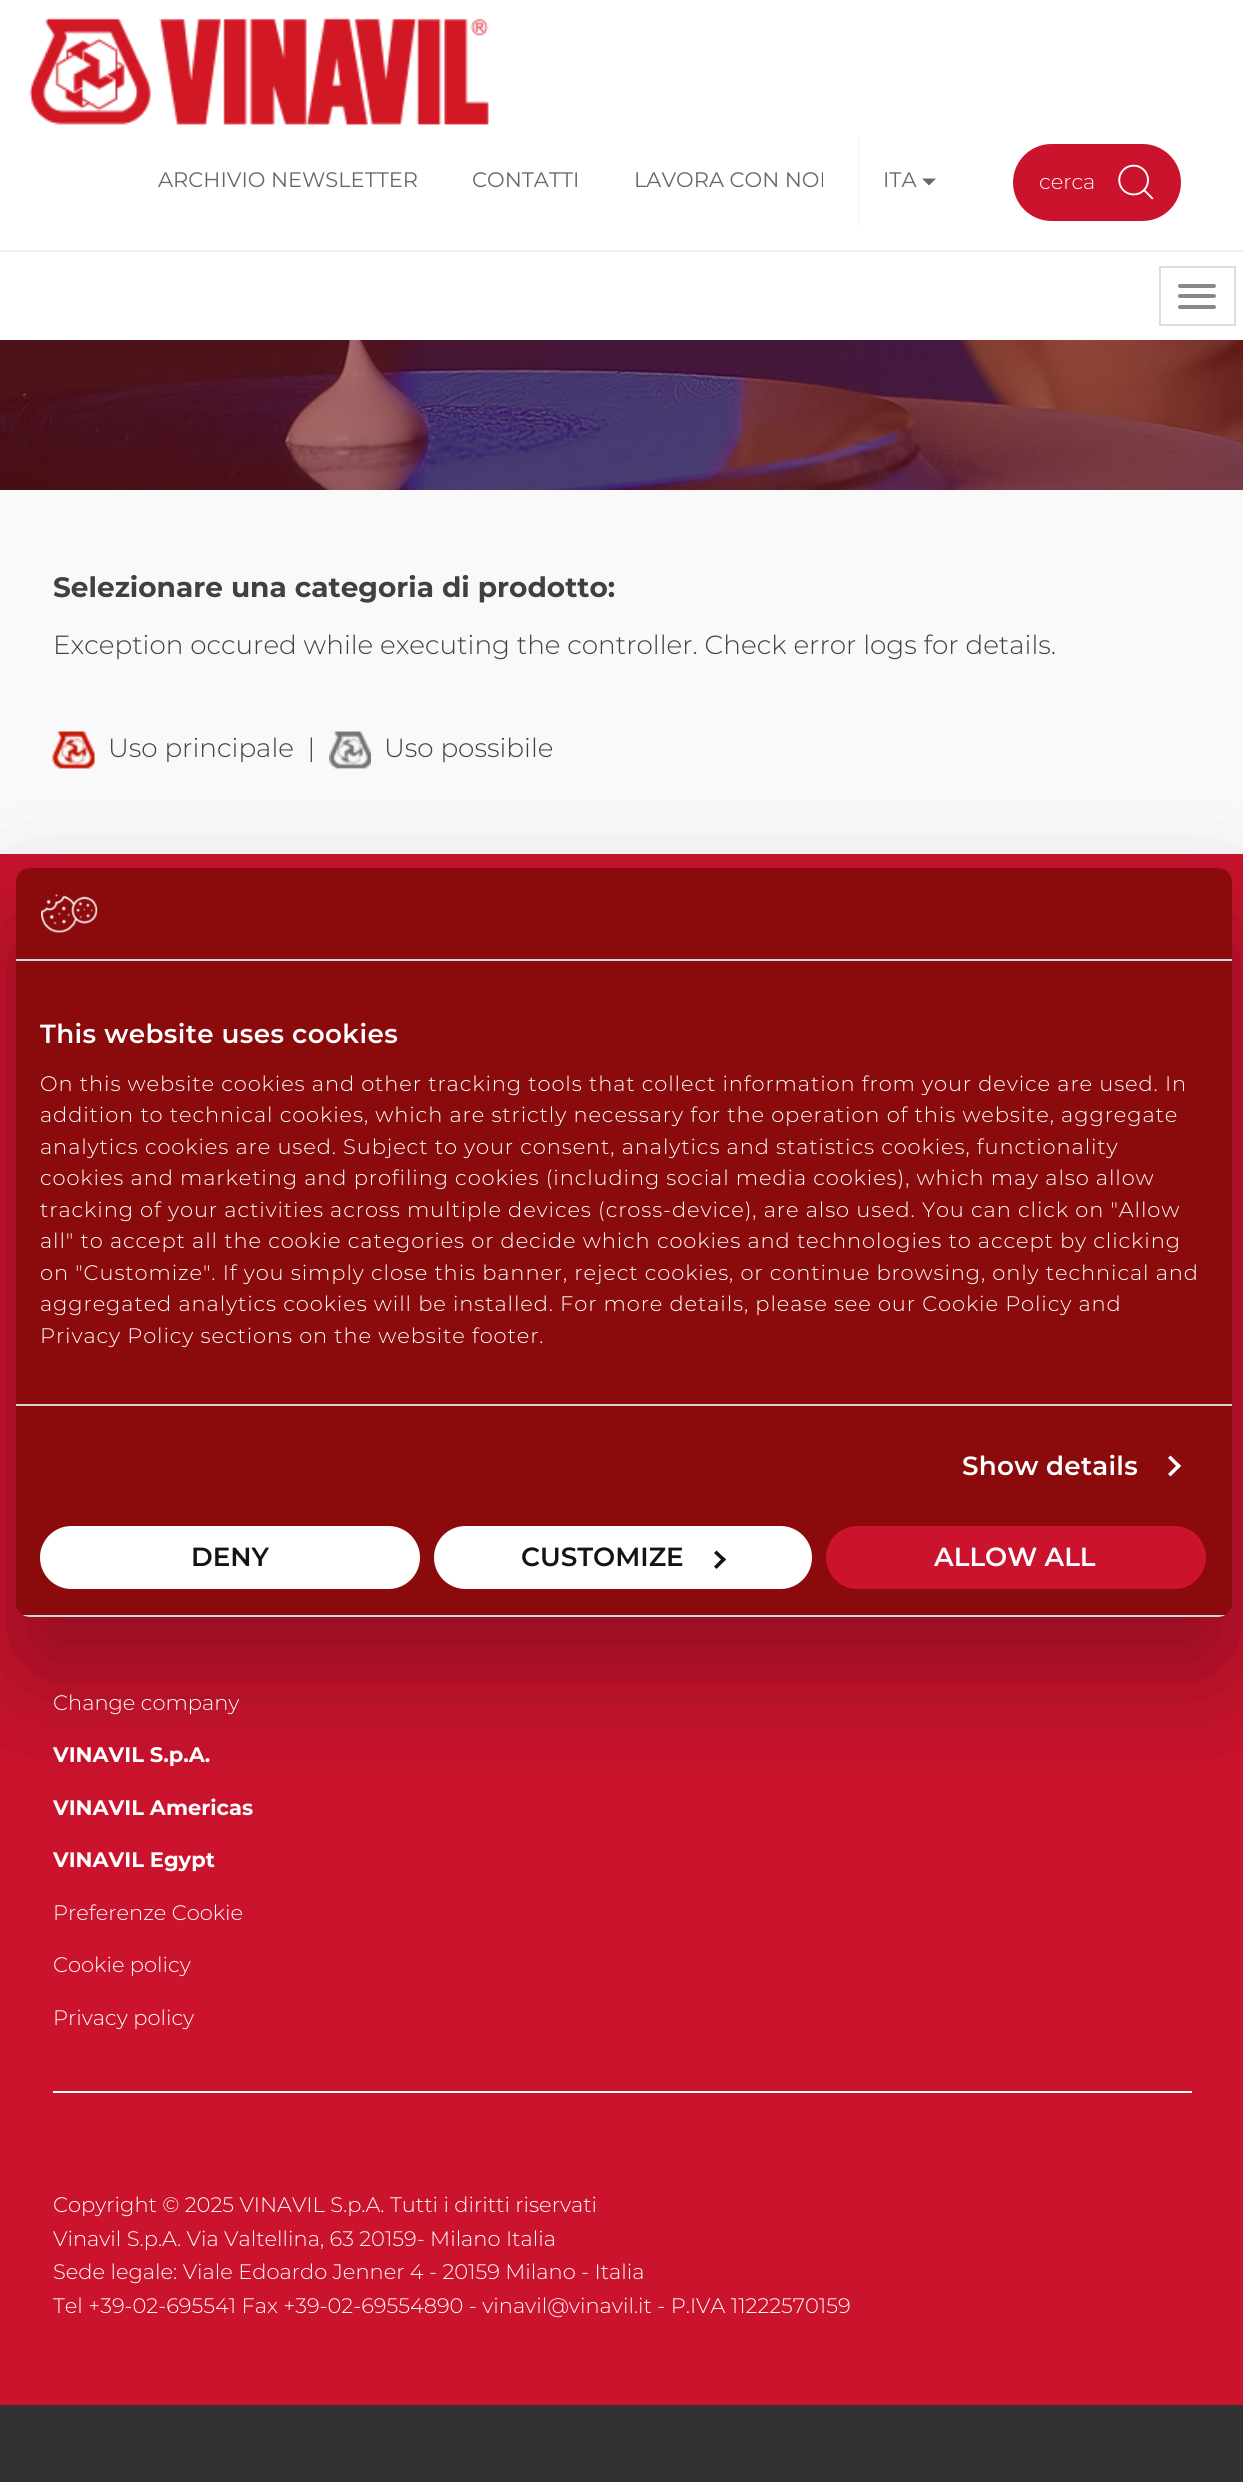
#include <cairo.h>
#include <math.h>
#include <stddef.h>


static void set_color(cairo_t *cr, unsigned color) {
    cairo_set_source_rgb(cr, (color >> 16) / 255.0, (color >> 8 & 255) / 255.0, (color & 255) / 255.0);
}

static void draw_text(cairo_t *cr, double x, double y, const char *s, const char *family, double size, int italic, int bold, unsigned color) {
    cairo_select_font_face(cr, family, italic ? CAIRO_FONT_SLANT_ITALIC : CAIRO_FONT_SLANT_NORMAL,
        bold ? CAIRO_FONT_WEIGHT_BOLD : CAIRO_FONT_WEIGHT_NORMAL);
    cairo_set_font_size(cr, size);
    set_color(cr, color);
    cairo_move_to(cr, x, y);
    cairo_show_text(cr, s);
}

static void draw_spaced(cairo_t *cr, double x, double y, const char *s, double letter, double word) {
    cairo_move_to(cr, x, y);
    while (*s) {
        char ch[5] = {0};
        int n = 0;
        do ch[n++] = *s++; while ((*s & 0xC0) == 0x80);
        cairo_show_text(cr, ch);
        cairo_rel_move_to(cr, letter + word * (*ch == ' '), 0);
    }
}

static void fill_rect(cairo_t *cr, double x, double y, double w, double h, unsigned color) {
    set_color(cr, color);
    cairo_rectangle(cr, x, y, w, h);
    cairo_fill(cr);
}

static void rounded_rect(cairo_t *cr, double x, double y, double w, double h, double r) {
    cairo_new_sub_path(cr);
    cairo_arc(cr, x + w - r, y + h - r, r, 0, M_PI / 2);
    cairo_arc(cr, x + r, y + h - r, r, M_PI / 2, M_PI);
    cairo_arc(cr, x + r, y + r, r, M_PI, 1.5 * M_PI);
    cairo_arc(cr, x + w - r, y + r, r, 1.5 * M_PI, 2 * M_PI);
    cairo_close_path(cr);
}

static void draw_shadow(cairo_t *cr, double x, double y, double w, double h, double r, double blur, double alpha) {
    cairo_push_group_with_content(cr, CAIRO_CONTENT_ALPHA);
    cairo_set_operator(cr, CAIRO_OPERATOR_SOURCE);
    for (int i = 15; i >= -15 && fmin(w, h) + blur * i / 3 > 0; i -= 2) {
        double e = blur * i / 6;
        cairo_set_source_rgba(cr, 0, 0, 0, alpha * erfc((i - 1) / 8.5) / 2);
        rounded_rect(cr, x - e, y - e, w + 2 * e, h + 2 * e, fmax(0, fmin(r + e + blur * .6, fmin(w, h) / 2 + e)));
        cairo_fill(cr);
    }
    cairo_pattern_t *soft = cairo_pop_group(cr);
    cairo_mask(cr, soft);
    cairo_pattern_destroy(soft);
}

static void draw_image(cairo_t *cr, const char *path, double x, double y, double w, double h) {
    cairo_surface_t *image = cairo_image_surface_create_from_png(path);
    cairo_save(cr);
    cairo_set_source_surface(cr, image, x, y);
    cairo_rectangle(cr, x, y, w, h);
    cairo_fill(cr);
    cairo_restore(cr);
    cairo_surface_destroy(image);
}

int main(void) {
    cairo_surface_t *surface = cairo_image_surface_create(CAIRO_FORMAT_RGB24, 1243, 2482);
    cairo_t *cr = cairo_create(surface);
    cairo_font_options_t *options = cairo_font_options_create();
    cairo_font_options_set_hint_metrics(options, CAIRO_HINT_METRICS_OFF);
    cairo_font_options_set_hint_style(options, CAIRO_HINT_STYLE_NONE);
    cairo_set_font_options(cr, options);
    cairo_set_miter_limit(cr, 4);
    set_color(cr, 0x313131);
    cairo_paint(cr);
    fill_rect(cr, 0, 0, 1243, 250, 0xFFFFFF);
    fill_rect(cr, 0, 250, 1243, 2, 0xEFEFEF);
    draw_image(cr, "assets/img1.png", 29, 17, 460, 109);
    draw_text(cr, 158, 187, "ARCHIVIO NEWSLETTER", "Montserrat", 21, 0, 0, 0x686868);
    draw_text(cr, 472, 187, "CONTATTI", "Montserrat", 21, 0, 0, 0x686868);
    draw_text(cr, 634, 187, "LAVORA CON NOI", "Montserrat", 21, 0, 0, 0x686868);
    set_color(cr, 0xF2F2F2);
    cairo_new_path(cr);
    cairo_move_to(cr, 858, 226);
    cairo_line_to(cr, 858, 135);
    cairo_line_to(cr, 859, 136);
    cairo_line_to(cr, 859, 224);
    cairo_close_path(cr);
    cairo_fill(cr);
    draw_text(cr, 883, 187, "ITA", "Montserrat", 21, 0, 0, 0x686868);
    cairo_new_path(cr);
    cairo_move_to(cr, 922, 178.5);
    cairo_line_to(cr, 936, 178.5);
    cairo_line_to(cr, 929, 185.5);
    cairo_close_path(cr);
    cairo_fill(cr);
    set_color(cr, 0xCB132D);
    rounded_rect(cr, 1013, 144, 168, 77, 38.5);
    cairo_fill(cr);
    draw_text(cr, 1039, 189, "cerca", "Montserrat Light", 21, 0, 0, 0xFFFFFF);
    draw_image(cr, "assets/img2.png", 1118, 164, 36, 36);
    fill_rect(cr, 0, 252, 1243, 88, 0xFFFFFF);
    cairo_rectangle(cr, 1160, 267, 75, 58);
    set_color(cr, 0xDDDDDD);
    cairo_stroke(cr);
    set_color(cr, 0x888888);
    rounded_rect(cr, 1178, 284, 38, 4, 2);
    cairo_fill(cr);
    rounded_rect(cr, 1178, 294, 38, 4, 2);
    cairo_fill(cr);
    rounded_rect(cr, 1178, 305, 38, 4, 2);
    cairo_fill(cr);
    draw_image(cr, "assets/img3.png", 0, 340, 1243, 150);
    fill_rect(cr, 0, 490, 1243, 364, 0xF9F9F9);
    draw_text(cr, 53, 597, "Selezionare una categoria di prodotto:", "Montserrat", 28, 0, 1, 0x404040);
    draw_text(cr, 53, 654, "Exception occured while executing the controller. Check error logs for details.", "Montserrat Light", 26.25, 0, 0, 0x404040);
    draw_image(cr, "assets/img4.png", 52, 731, 43, 38);
    draw_text(cr, 108, 757, "Uso principale  |", "Montserrat Light", 26.25, 0, 0, 0x404040);
    draw_image(cr, "assets/img5.png", 329, 731, 42, 38);
    draw_text(cr, 384, 757, "Uso possibile", "Montserrat Light", 26.25, 0, 0, 0x404040);
    fill_rect(cr, 0, 854, 1243, 1551, 0xCB132D);
    set_color(cr, 0x000000);
    draw_shadow(cr, 16, 924, 1216, 749, 14, 59.5, 0.3);
    set_color(cr, 0x8B0B0D);
    rounded_rect(cr, 16, 868, 1216, 749, 14);
    cairo_fill(cr);
    fill_rect(cr, 16, 959, 1216, 2, 0xD6D6D6);
    draw_image(cr, "assets/img6.png", 41, 894, 57, 39);
    fill_rect(cr, 16, 1404, 1216, 2, 0xD6D6D6);
    cairo_select_font_face(cr, "Montserrat SemiBold", CAIRO_FONT_SLANT_NORMAL, CAIRO_FONT_WEIGHT_NORMAL);
    set_color(cr, 0xFFFFFF);
    draw_spaced(cr, 40, 1043, "This website uses cookies", 0.4, 0);
    cairo_select_font_face(cr, "Montserrat Light", CAIRO_FONT_SLANT_NORMAL, CAIRO_FONT_WEIGHT_NORMAL);
    cairo_set_font_size(cr, 21);
    draw_spaced(cr, 40, 1091, "On this website cookies and other tracking tools that collect information from your device are used. In", 0.88, 0);
    draw_spaced(cr, 40, 1122, "addition to technical cookies, which are strictly necessary for the operation of this website, aggregate", 0.88, 0);
    draw_spaced(cr, 40, 1154, "analytics cookies are used. Subject to your consent, analytics and statistics cookies, functionality", 0.88, 0);
    draw_spaced(cr, 40, 1185, "cookies and marketing and profiling cookies (including social media cookies), which may also allow", 0.88, 0);
    draw_spaced(cr, 40, 1217, "tracking of your activities across multiple devices (cross-device), are also used. You can click on \"Allow", 0.88, 0);
    draw_spaced(cr, 40, 1248, "all\" to accept all the cookie categories or decide which cookies and technologies to accept by clicking", 0.88, 0);
    draw_spaced(cr, 40, 1280, "on \"Customize\". If you simply close this banner, reject cookies, or continue browsing, only technical and", 0.88, 0);
    draw_spaced(cr, 40, 1311, "aggregated analytics cookies will be installed. For more details, please see our Cookie Policy and", 0.88, 0);
    draw_spaced(cr, 40, 1343, "Privacy Policy sections on the website footer.", 0.88, 0);
    cairo_select_font_face(cr, "Montserrat SemiBold", CAIRO_FONT_SLANT_NORMAL, CAIRO_FONT_WEIGHT_NORMAL);
    cairo_set_font_size(cr, 26.25);
    draw_spaced(cr, 962, 1475, "Show details", 0.25, 0);
    cairo_new_path(cr);
    cairo_move_to(cr, 1170.5, 1455.5);
    cairo_line_to(cr, 1181, 1466);
    cairo_line_to(cr, 1178.5, 1468.5);
    cairo_line_to(cr, 1168, 1458);
    cairo_close_path(cr);
    cairo_fill(cr);
    cairo_new_path(cr);
    cairo_move_to(cr, 1178.5, 1463.5);
    cairo_line_to(cr, 1181, 1466);
    cairo_line_to(cr, 1170.5, 1476.5);
    cairo_line_to(cr, 1168, 1474);
    cairo_close_path(cr);
    cairo_fill(cr);
    cairo_save(cr);
    rounded_rect(cr, 16, 868, 1216, 749, 14);
    cairo_clip(cr);
    fill_rect(cr, 16, 1615, 1216, 2, 0xD6D6D6);
    cairo_restore(cr);
    rounded_rect(cr, 42, 1528, 376, 59, 29.5);
    cairo_fill_preserve(cr);
    cairo_set_line_width(cr, 4);
    cairo_stroke(cr);
    draw_text(cr, 191, 1566, "DENY", "Montserrat SemiBold", 26.25, 0, 0, 0x141414);
    set_color(cr, 0xFFFFFF);
    rounded_rect(cr, 436, 1528, 374, 59, 29.5);
    cairo_fill_preserve(cr);
    cairo_stroke(cr);
    draw_text(cr, 521, 1566, "CUSTOMIZE", "Montserrat SemiBold", 26.25, 0, 0, 0x141414);
    cairo_new_path(cr);
    cairo_move_to(cr, 716.5, 1550.5);
    cairo_line_to(cr, 726, 1559.5);
    cairo_line_to(cr, 723.5, 1562);
    cairo_line_to(cr, 714, 1553);
    cairo_close_path(cr);
    cairo_fill(cr);
    cairo_new_path(cr);
    cairo_move_to(cr, 723.5, 1557);
    cairo_line_to(cr, 726, 1559.5);
    cairo_line_to(cr, 716.5, 1569);
    cairo_line_to(cr, 714, 1566.5);
    cairo_close_path(cr);
    cairo_fill(cr);
    set_color(cr, 0xCB132D);
    rounded_rect(cr, 828, 1528, 376, 59, 29.5);
    cairo_fill_preserve(cr);
    cairo_stroke(cr);
    draw_text(cr, 934, 1566, "ALLOW ALL", "Montserrat SemiBold", 26.25, 0, 0, 0xFFFFFF);
    draw_text(cr, 53, 1710, "Change company", "Montserrat Light", 21, 0, 0, 0xFFFFFF);
    draw_text(cr, 53, 1762, "VINAVIL S.p.A.", "Montserrat", 21, 0, 1, 0xFFFFFF);
    draw_text(cr, 53, 1815, "VINAVIL Americas", "Montserrat", 21, 0, 1, 0xFFFFFF);
    draw_text(cr, 53, 1867, "VINAVIL Egypt", "Montserrat", 21, 0, 1, 0xFFFFFF);
    draw_text(cr, 53, 1920, "Preferenze Cookie", "Montserrat Light", 21, 0, 0, 0xFFFFFF);
    draw_text(cr, 53, 1972, "Cookie policy", "Montserrat Light", 21, 0, 0, 0xFFFFFF);
    draw_text(cr, 53, 2025, "Privacy policy", "Montserrat Light", 21, 0, 0, 0xFFFFFF);
    fill_rect(cr, 53, 2091, 1139, 2, 0xFFFFFF);
    draw_text(cr, 53, 2212, "Copyright © 2025 VINAVIL S.p.A. Tutti i diritti riservati", "Montserrat Light", 21, 0, 0, 0xFFFFFF);
    draw_text(cr, 53, 2246, "Vinavil S.p.A. Via Valtellina, 63 20159- Milano Italia", "Montserrat Light", 21, 0, 0, 0xFFFFFF);
    draw_text(cr, 53, 2279, "Sede legale: Viale Edoardo Jenner 4 - 20159 Milano - Italia", "Montserrat Light", 21, 0, 0, 0xFFFFFF);
    draw_text(cr, 53, 2313, "Tel +39-02-695541 Fax +39-02-69554890 - vinavil@vinavil.it - P.IVA 11222570159", "Montserrat Light", 21, 0, 0, 0xFFFFFF);
    cairo_surface_write_to_png(surface, "output.png");
    cairo_font_options_destroy(options);
    cairo_destroy(cr);
    cairo_surface_destroy(surface);
    return 0;
}
